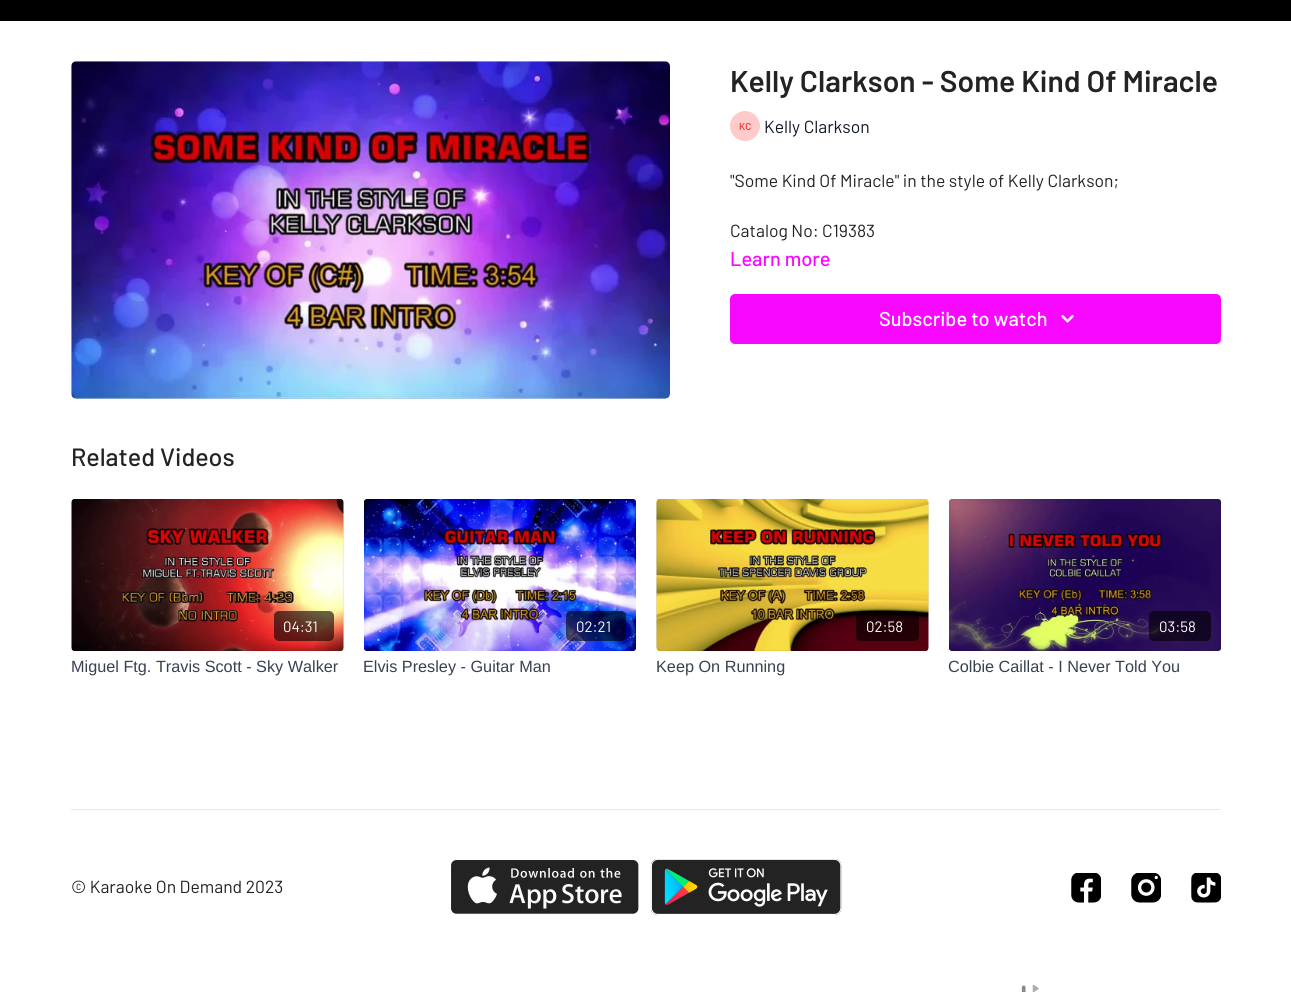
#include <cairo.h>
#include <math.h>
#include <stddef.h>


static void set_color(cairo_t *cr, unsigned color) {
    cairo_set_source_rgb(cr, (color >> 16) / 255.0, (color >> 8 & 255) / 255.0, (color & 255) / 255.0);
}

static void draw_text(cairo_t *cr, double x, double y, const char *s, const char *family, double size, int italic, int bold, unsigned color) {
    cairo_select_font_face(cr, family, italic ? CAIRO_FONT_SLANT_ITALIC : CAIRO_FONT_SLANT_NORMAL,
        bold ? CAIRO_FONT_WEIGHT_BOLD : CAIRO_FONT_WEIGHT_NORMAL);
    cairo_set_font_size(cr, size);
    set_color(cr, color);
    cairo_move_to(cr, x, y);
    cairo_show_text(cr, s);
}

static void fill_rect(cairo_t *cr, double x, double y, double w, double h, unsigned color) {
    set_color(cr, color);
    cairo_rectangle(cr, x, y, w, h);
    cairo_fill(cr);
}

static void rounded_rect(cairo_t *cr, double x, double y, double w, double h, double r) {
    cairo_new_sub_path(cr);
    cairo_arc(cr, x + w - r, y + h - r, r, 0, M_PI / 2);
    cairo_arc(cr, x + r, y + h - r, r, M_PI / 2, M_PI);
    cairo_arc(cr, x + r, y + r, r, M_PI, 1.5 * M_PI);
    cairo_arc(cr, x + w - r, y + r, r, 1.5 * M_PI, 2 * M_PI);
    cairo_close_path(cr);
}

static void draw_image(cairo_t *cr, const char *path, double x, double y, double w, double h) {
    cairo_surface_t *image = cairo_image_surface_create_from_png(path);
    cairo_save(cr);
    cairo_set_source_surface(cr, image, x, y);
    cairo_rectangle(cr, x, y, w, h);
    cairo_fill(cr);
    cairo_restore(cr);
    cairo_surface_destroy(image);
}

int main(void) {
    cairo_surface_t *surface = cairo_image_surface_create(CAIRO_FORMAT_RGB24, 1291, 992);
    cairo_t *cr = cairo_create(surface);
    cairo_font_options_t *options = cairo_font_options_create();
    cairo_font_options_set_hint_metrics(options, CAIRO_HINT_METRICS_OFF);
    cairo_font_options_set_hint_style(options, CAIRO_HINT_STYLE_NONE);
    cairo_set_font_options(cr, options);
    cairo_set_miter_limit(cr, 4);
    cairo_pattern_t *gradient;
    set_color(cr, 0xFFFFFF);
    cairo_paint(cr);
    fill_rect(cr, 0, 0, 1291, 21, 0x000000);
    draw_image(cr, "assets/img1.png", 71, 61, 599, 338);
    draw_text(cr, 730, 92, "Kelly Clarkson - Some Kind Of Miracle", "Barlow SemiBold", 30, 0, 0, 0x232323);
    set_color(cr, 0xFECACA);
    cairo_new_path(cr);
    cairo_arc(cr, 745, 126, 15, 0, 2 * M_PI);
    cairo_fill(cr);
    draw_text(cr, 739, 130, "KC", "Barlow SemiBold", 10, 0, 0, 0xEF4444);
    draw_text(cr, 764, 133, "Kelly Clarkson", "Barlow", 17.5, 0, 0, 0x111827);
    draw_text(cr, 730, 187, "\"Some Kind Of Miracle\" in the style of Kelly Clarkson;", "Barlow", 17.5, 0, 0, 0x232323);
    draw_text(cr, 730, 237, "Catalog No: C19383", "Barlow", 17.5, 0, 0, 0x232323);
    draw_text(cr, 730, 266, "Learn more", "Barlow Medium", 20, 0, 0, 0xF808FF);
    rounded_rect(cr, 730, 294, 491, 50, 5);
    cairo_fill(cr);
    draw_text(cr, 879, 326, "Subscribe to watch", "Barlow Medium", 20, 0, 0, 0xFFFFFF);
    draw_image(cr, "assets/img2.png", 1061, 315, 13, 8);
    draw_text(cr, 71, 466, "Related Videos", "Barlow Medium", 25, 0, 0, 0x232323);
    gradient = cairo_pattern_create_linear(71, 575, 344, 575);
    cairo_pattern_add_color_stop_rgba(gradient, 0.08, 0.871, 0.871, 0.871, 1);
    cairo_pattern_add_color_stop_rgba(gradient, 0.18, 0.878, 0.878, 0.878, 1);
    cairo_pattern_add_color_stop_rgba(gradient, 0.33, 0.89, 0.89, 0.89, 1);
    cairo_set_source(cr, gradient);
    cairo_pattern_destroy(gradient);
    rounded_rect(cr, 71, 499, 273, 152, 5);
    cairo_fill(cr);
    draw_image(cr, "assets/img3.png", 71, 499, 273, 152);
    cairo_set_source_rgba(cr, 0, 0, 0, 0.6);
    rounded_rect(cr, 274, 611, 60, 30, 5);
    cairo_fill(cr);
    draw_text(cr, 283, 632, "04:31", "Barlow", 15, 0, 0, 0xFFFFFF);
    draw_text(cr, 71, 672, "Miguel Ftg. Travis Scott - Sky Walker", "Liberation Sans", 16.25, 0, 0, 0x374151);
    draw_image(cr, "assets/img4.png", 364, 499, 272, 152);
    cairo_set_source_rgba(cr, 0, 0, 0, 0.6);
    rounded_rect(cr, 566, 611, 60, 30, 5);
    cairo_fill(cr);
    draw_text(cr, 576, 632, "02:21", "Barlow", 15, 0, 0, 0xFFFFFF);
    draw_text(cr, 363, 672, "Elvis Presley - Guitar Man", "Liberation Sans", 16.25, 0, 0, 0x374151);
    gradient = cairo_pattern_create_linear(656, 575, 929, 575);
    cairo_pattern_add_color_stop_rgba(gradient, 0.08, 0.871, 0.871, 0.871, 1);
    cairo_pattern_add_color_stop_rgba(gradient, 0.18, 0.878, 0.878, 0.878, 1);
    cairo_pattern_add_color_stop_rgba(gradient, 0.33, 0.89, 0.89, 0.89, 1);
    cairo_set_source(cr, gradient);
    cairo_pattern_destroy(gradient);
    rounded_rect(cr, 656, 499, 273, 152, 5);
    cairo_fill(cr);
    draw_image(cr, "assets/img5.png", 656, 499, 273, 152);
    cairo_set_source_rgba(cr, 0, 0, 0, 0.6);
    rounded_rect(cr, 856, 611, 63, 30, 5);
    cairo_fill(cr);
    draw_text(cr, 866, 632, "02:58", "Barlow", 15, 0, 0, 0xFFFFFF);
    draw_text(cr, 656, 672, "Keep On Running", "Liberation Sans", 16.25, 0, 0, 0x374151);
    draw_image(cr, "assets/img6.png", 949, 499, 272, 152);
    cairo_set_source_rgba(cr, 0, 0, 0, 0.6);
    rounded_rect(cr, 1149, 611, 62, 30, 5);
    cairo_fill(cr);
    draw_text(cr, 1159, 632, "03:58", "Barlow", 15, 0, 0, 0xFFFFFF);
    draw_text(cr, 948, 672, "Colbie Caillat - I Never Told You", "Liberation Sans", 16.25, 0, 0, 0x374151);
    fill_rect(cr, 71, 809, 1150, 1, 0xE9E9E9);
    draw_text(cr, 71, 893, "© Karaoke On Demand 2023", "Barlow", 17.5, 0, 0, 0x232323);
    draw_image(cr, "assets/img7.png", 451, 860, 188, 54);
    draw_image(cr, "assets/img8.png", 650, 859, 192, 56);
    draw_image(cr, "assets/img9.png", 1071, 873, 30, 30);
    draw_image(cr, "assets/img10.png", 1131, 873, 30, 30);
    draw_image(cr, "assets/img11.png", 1191, 873, 30, 30);
    draw_image(cr, "assets/img12.png", 1021, 984, 18, 8);
    cairo_surface_write_to_png(surface, "output.png");
    cairo_font_options_destroy(options);
    cairo_destroy(cr);
    cairo_surface_destroy(surface);
    return 0;
}
